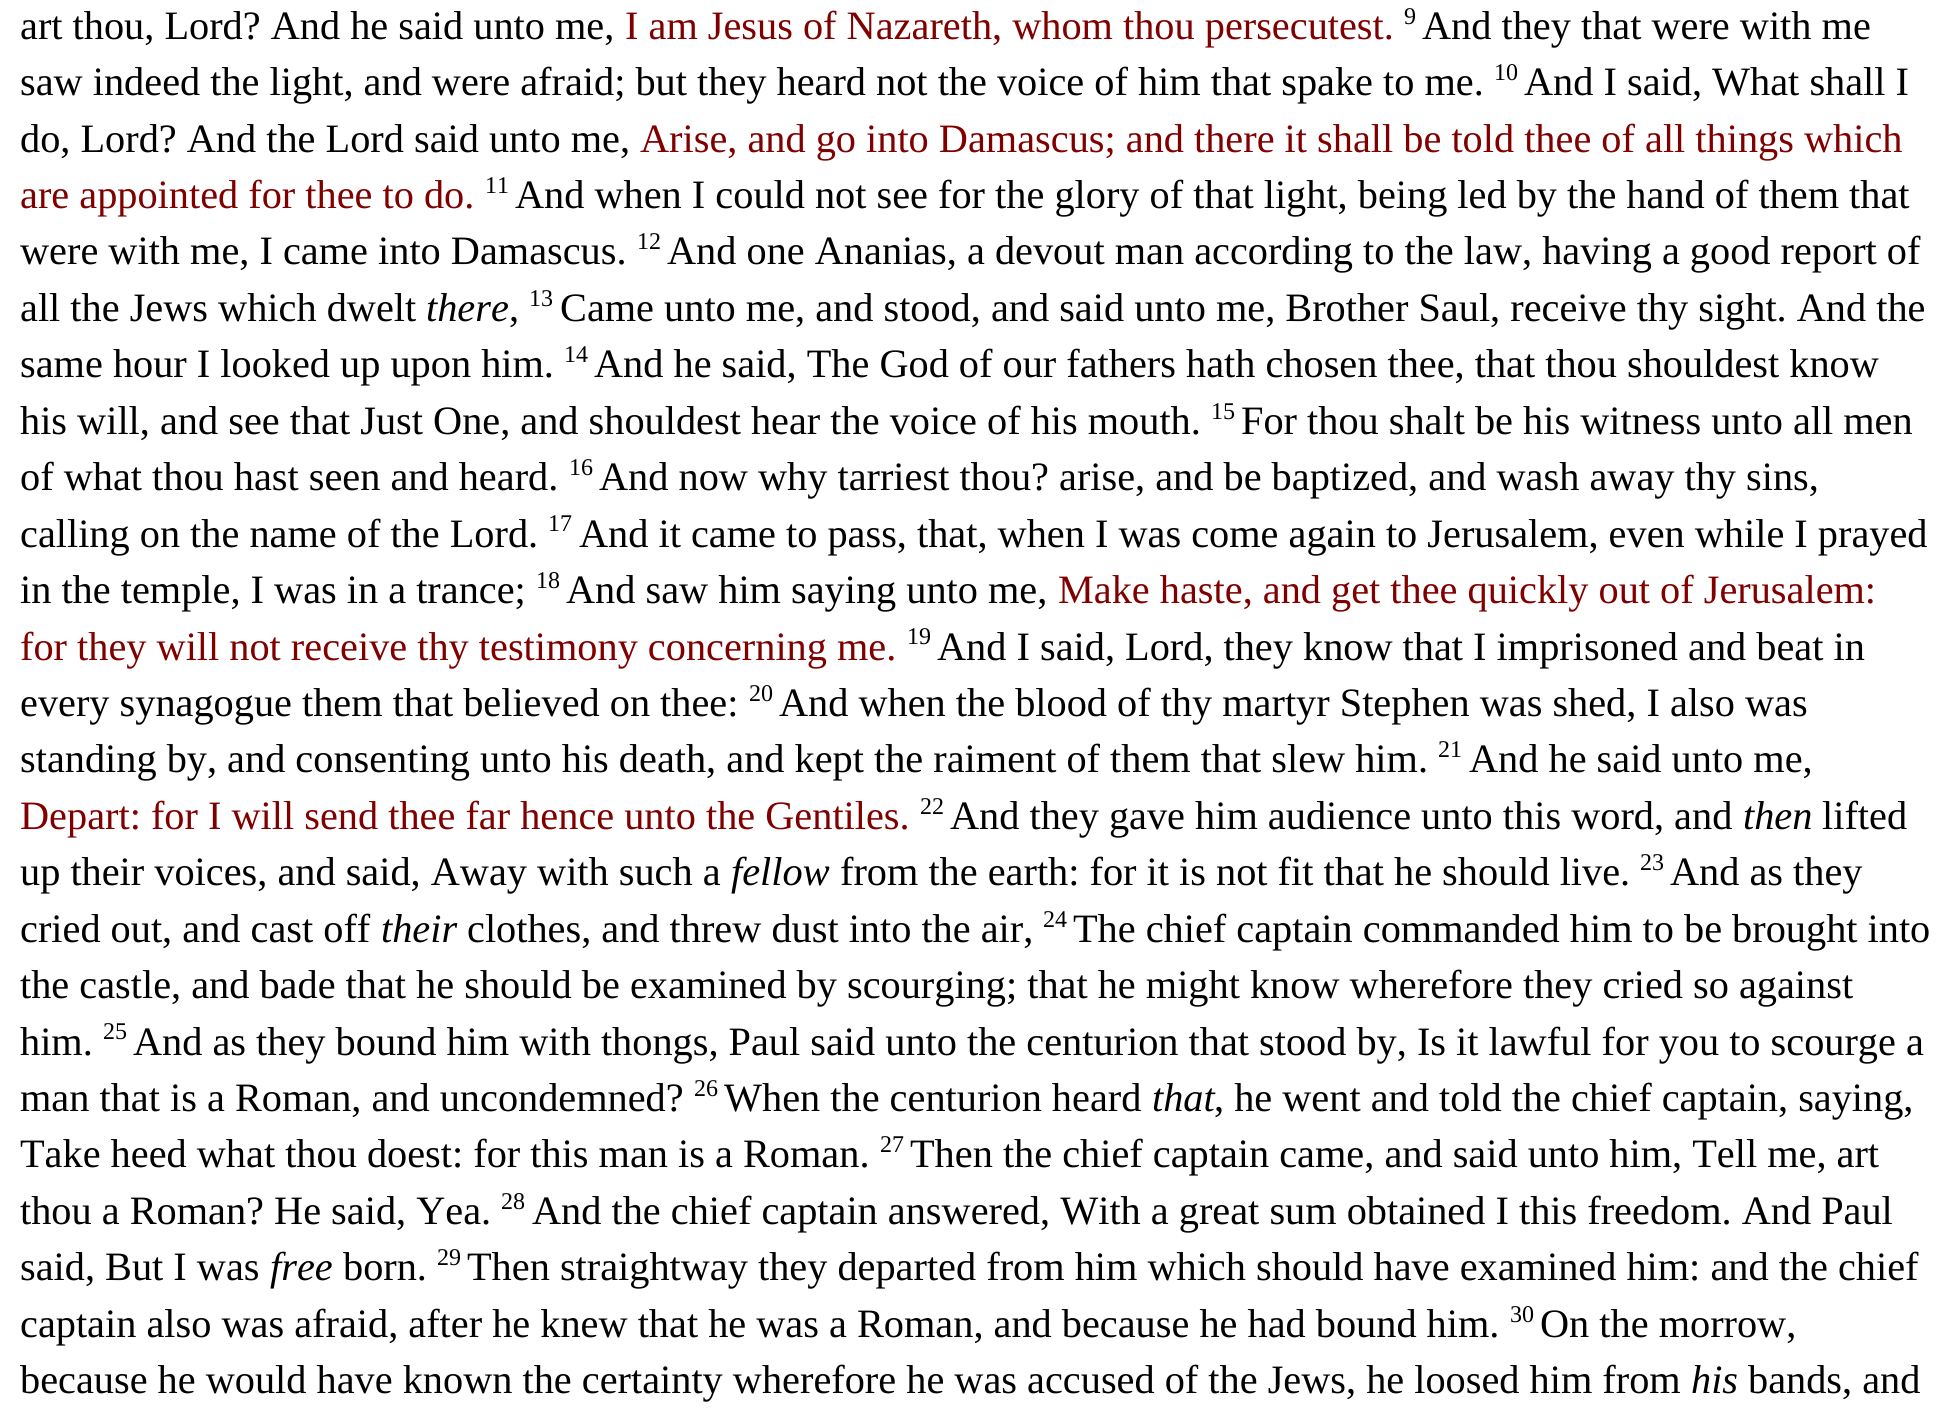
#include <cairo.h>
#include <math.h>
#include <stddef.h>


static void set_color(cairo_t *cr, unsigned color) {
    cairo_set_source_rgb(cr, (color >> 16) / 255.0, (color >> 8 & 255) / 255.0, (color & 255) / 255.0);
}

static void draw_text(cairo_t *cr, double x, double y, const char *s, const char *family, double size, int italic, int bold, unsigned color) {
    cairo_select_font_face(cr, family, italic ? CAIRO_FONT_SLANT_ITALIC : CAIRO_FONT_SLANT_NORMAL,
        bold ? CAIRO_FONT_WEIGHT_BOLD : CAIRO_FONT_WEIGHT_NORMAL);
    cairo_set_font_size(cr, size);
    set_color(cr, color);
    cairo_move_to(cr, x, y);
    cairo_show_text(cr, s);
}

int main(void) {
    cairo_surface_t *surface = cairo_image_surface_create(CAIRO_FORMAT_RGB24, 1951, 1416);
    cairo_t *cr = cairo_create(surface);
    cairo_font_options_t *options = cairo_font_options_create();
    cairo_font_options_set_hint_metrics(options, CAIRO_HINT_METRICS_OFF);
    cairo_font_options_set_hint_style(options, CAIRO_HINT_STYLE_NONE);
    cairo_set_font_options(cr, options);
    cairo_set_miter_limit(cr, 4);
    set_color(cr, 0xFFFFFF);
    cairo_paint(cr);
    draw_text(cr, 20, 39, "art thou, Lord? And he said unto me,", "Liberation Serif", 40.3, 0, 0, 0x000000);
    draw_text(cr, 625, 39, "I am Jesus of Nazareth, whom thou persecutest.", "Liberation Serif", 40.3, 0, 0, 0x800000);
    draw_text(cr, 1404, 24, "9", "Liberation Serif", 24, 0, 0, 0x000000);
    draw_text(cr, 1422, 39, "And they that were with me", "Liberation Serif", 40.3, 0, 0, 0x000000);
    draw_text(cr, 20, 95, "saw indeed the light, and were afraid; but they heard not the voice of him that spake to me.", "Liberation Serif", 40.3, 0, 0, 0x000000);
    draw_text(cr, 1494, 80, "10", "Liberation Serif", 24, 0, 0, 0x000000);
    draw_text(cr, 1524, 95, "And I said, What shall I", "Liberation Serif", 40.3, 0, 0, 0x000000);
    draw_text(cr, 20, 152, "do, Lord? And the Lord said unto me,", "Liberation Serif", 40.3, 0, 0, 0x000000);
    draw_text(cr, 640, 152, "Arise, and go into Damascus; and there it shall be told thee of all things which", "Liberation Serif", 40.3, 0, 0, 0x800000);
    draw_text(cr, 20, 208, "are appointed for thee to do.", "Liberation Serif", 40.3, 0, 0, 0x800000);
    draw_text(cr, 485, 193, "11", "Liberation Serif", 24, 0, 0, 0x000000);
    draw_text(cr, 515, 208, "And when I could not see for the glory of that light, being led by the hand of them that", "Liberation Serif", 40.3, 0, 0, 0x000000);
    draw_text(cr, 20, 264, "were with me, I came into Damascus.", "Liberation Serif", 40.3, 0, 0, 0x000000);
    draw_text(cr, 637, 249, "12", "Liberation Serif", 24, 0, 0, 0x000000);
    draw_text(cr, 667, 264, "And one Ananias, a devout man according to the law, having a good report of", "Liberation Serif", 40.3, 0, 0, 0x000000);
    draw_text(cr, 20, 321, "all the Jews which dwelt", "Liberation Serif", 40.3, 0, 0, 0x000000);
    draw_text(cr, 426, 321, "there", "Liberation Serif", 40.3, 1, 0, 0x000000);
    draw_text(cr, 509, 321, ",", "Liberation Serif", 40.3, 0, 0, 0x000000);
    draw_text(cr, 529, 306, "13", "Liberation Serif", 24, 0, 0, 0x000000);
    draw_text(cr, 560, 321, "Came unto me, and stood, and said unto me, Brother Saul, receive thy sight. And the", "Liberation Serif", 40.3, 0, 0, 0x000000);
    draw_text(cr, 20, 377, "same hour I looked up upon him.", "Liberation Serif", 40.3, 0, 0, 0x000000);
    draw_text(cr, 564, 362, "14", "Liberation Serif", 24, 0, 0, 0x000000);
    draw_text(cr, 594, 377, "And he said, The God of our fathers hath chosen thee, that thou shouldest know", "Liberation Serif", 40.3, 0, 0, 0x000000);
    draw_text(cr, 20, 434, "his will, and see that Just One, and shouldest hear the voice of his mouth.", "Liberation Serif", 40.3, 0, 0, 0x000000);
    draw_text(cr, 1211, 419, "15", "Liberation Serif", 24, 0, 0, 0x000000);
    draw_text(cr, 1241, 434, "For thou shalt be his witness unto all men", "Liberation Serif", 40.3, 0, 0, 0x000000);
    draw_text(cr, 20, 490, "of what thou hast seen and heard.", "Liberation Serif", 40.3, 0, 0, 0x000000);
    draw_text(cr, 569, 475, "16", "Liberation Serif", 24, 0, 0, 0x000000);
    draw_text(cr, 599, 490, "And now why tarriest thou? arise, and be baptized, and wash away thy sins,", "Liberation Serif", 40.3, 0, 0, 0x000000);
    draw_text(cr, 20, 547, "calling on the name of the Lord.", "Liberation Serif", 40.3, 0, 0, 0x000000);
    draw_text(cr, 548, 531, "17", "Liberation Serif", 24, 0, 0, 0x000000);
    draw_text(cr, 579, 547, "And it came to pass, that, when I was come again to Jerusalem, even while I prayed", "Liberation Serif", 40.3, 0, 0, 0x000000);
    draw_text(cr, 20, 603, "in the temple, I was in a trance;", "Liberation Serif", 40.3, 0, 0, 0x000000);
    draw_text(cr, 536, 588, "18", "Liberation Serif", 24, 0, 0, 0x000000);
    draw_text(cr, 566, 603, "And saw him saying unto me,", "Liberation Serif", 40.3, 0, 0, 0x000000);
    draw_text(cr, 1058, 603, "Make haste, and get thee quickly out of Jerusalem:", "Liberation Serif", 40.3, 0, 0, 0x800000);
    draw_text(cr, 20, 660, "for they will not receive thy testimony concerning me.", "Liberation Serif", 40.3, 0, 0, 0x800000);
    draw_text(cr, 907, 644, "19", "Liberation Serif", 24, 0, 0, 0x000000);
    draw_text(cr, 937, 660, "And I said, Lord, they know that I imprisoned and beat in", "Liberation Serif", 40.3, 0, 0, 0x000000);
    draw_text(cr, 20, 716, "every synagogue them that believed on thee:", "Liberation Serif", 40.3, 0, 0, 0x000000);
    draw_text(cr, 749, 701, "20", "Liberation Serif", 24, 0, 0, 0x000000);
    draw_text(cr, 779, 716, "And when the blood of thy martyr Stephen was shed, I also was", "Liberation Serif", 40.3, 0, 0, 0x000000);
    draw_text(cr, 20, 772, "standing by, and consenting unto his death, and kept the raiment of them that slew him.", "Liberation Serif", 40.3, 0, 0, 0x000000);
    draw_text(cr, 1438, 757, "21", "Liberation Serif", 24, 0, 0, 0x000000);
    draw_text(cr, 1469, 772, "And he said unto me,", "Liberation Serif", 40.3, 0, 0, 0x000000);
    draw_text(cr, 20, 829, "Depart: for I will send thee far hence unto the Gentiles.", "Liberation Serif", 40.3, 0, 0, 0x800000);
    draw_text(cr, 920, 814, "22", "Liberation Serif", 24, 0, 0, 0x000000);
    draw_text(cr, 950, 829, "And they gave him audience unto this word, and", "Liberation Serif", 40.3, 0, 0, 0x000000);
    draw_text(cr, 1743, 829, "then", "Liberation Serif", 40.3, 1, 0, 0x000000);
    draw_text(cr, 1822, 829, "lifted", "Liberation Serif", 40.3, 0, 0, 0x000000);
    draw_text(cr, 20, 885, "up their voices, and said, Away with such a", "Liberation Serif", 40.3, 0, 0, 0x000000);
    draw_text(cr, 731, 885, "fellow", "Liberation Serif", 40.3, 1, 0, 0x000000);
    draw_text(cr, 840, 885, "from the earth: for it is not fit that he should live.", "Liberation Serif", 40.3, 0, 0, 0x000000);
    draw_text(cr, 1640, 870, "23", "Liberation Serif", 24, 0, 0, 0x000000);
    draw_text(cr, 1670, 885, "And as they", "Liberation Serif", 40.3, 0, 0, 0x000000);
    draw_text(cr, 20, 942, "cried out, and cast off", "Liberation Serif", 40.3, 0, 0, 0x000000);
    draw_text(cr, 381, 942, "their", "Liberation Serif", 40.3, 1, 0, 0x000000);
    draw_text(cr, 467, 942, "clothes, and threw dust into the air,", "Liberation Serif", 40.3, 0, 0, 0x000000);
    draw_text(cr, 1043, 927, "24", "Liberation Serif", 24, 0, 0, 0x000000);
    draw_text(cr, 1073, 942, "The chief captain commanded him to be brought into", "Liberation Serif", 40.3, 0, 0, 0x000000);
    draw_text(cr, 20, 998, "the castle, and bade that he should be examined by scourging; that he might know wherefore they cried so against", "Liberation Serif", 40.3, 0, 0, 0x000000);
    draw_text(cr, 20, 1055, "him.", "Liberation Serif", 40.3, 0, 0, 0x000000);
    draw_text(cr, 103, 1039, "25", "Liberation Serif", 24, 0, 0, 0x000000);
    draw_text(cr, 133, 1055, "And as they bound him with thongs, Paul said unto the centurion that stood by, Is it lawful for you to scourge a", "Liberation Serif", 40.3, 0, 0, 0x000000);
    draw_text(cr, 20, 1111, "man that is a Roman, and uncondemned?", "Liberation Serif", 40.3, 0, 0, 0x000000);
    draw_text(cr, 694, 1096, "26", "Liberation Serif", 24, 0, 0, 0x000000);
    draw_text(cr, 724, 1111, "When the centurion heard", "Liberation Serif", 40.3, 0, 0, 0x000000);
    draw_text(cr, 1152, 1111, "that", "Liberation Serif", 40.3, 1, 0, 0x000000);
    draw_text(cr, 1214, 1111, ", he went and told the chief captain, saying,", "Liberation Serif", 40.3, 0, 0, 0x000000);
    draw_text(cr, 20, 1167, "Take heed what thou doest: for this man is a Roman.", "Liberation Serif", 40.3, 0, 0, 0x000000);
    draw_text(cr, 880, 1152, "27", "Liberation Serif", 24, 0, 0, 0x000000);
    draw_text(cr, 910, 1167, "Then the chief captain came, and said unto him, Tell me, art", "Liberation Serif", 40.3, 0, 0, 0x000000);
    draw_text(cr, 20, 1224, "thou a Roman? He said, Yea.", "Liberation Serif", 40.3, 0, 0, 0x000000);
    draw_text(cr, 501, 1209, "28", "Liberation Serif", 24, 0, 0, 0x000000);
    draw_text(cr, 532, 1224, "And the chief captain answered, With a great sum obtained I this freedom. And Paul", "Liberation Serif", 40.3, 0, 0, 0x000000);
    draw_text(cr, 20, 1280, "said, But I was", "Liberation Serif", 40.3, 0, 0, 0x000000);
    draw_text(cr, 270, 1280, "free", "Liberation Serif", 40.3, 1, 0, 0x000000);
    draw_text(cr, 343, 1280, "born.", "Liberation Serif", 40.3, 0, 0, 0x000000);
    draw_text(cr, 437, 1265, "29", "Liberation Serif", 24, 0, 0, 0x000000);
    draw_text(cr, 467, 1280, "Then straightway they departed from him which should have examined him: and the chief", "Liberation Serif", 40.3, 0, 0, 0x000000);
    draw_text(cr, 20, 1337, "captain also was afraid, after he knew that he was a Roman, and because he had bound him.", "Liberation Serif", 40.3, 0, 0, 0x000000);
    draw_text(cr, 1510, 1322, "30", "Liberation Serif", 24, 0, 0, 0x000000);
    draw_text(cr, 1540, 1337, "On the morrow,", "Liberation Serif", 40.3, 0, 0, 0x000000);
    draw_text(cr, 20, 1393, "because he would have known the certainty wherefore he was accused of the Jews, he loosed him from", "Liberation Serif", 40.3, 0, 0, 0x000000);
    draw_text(cr, 1691, 1393, "his", "Liberation Serif", 40.3, 1, 0, 0x000000);
    draw_text(cr, 1748, 1393, "bands, and", "Liberation Serif", 40.3, 0, 0, 0x000000);
    cairo_surface_write_to_png(surface, "output.png");
    cairo_font_options_destroy(options);
    cairo_destroy(cr);
    cairo_surface_destroy(surface);
    return 0;
}
